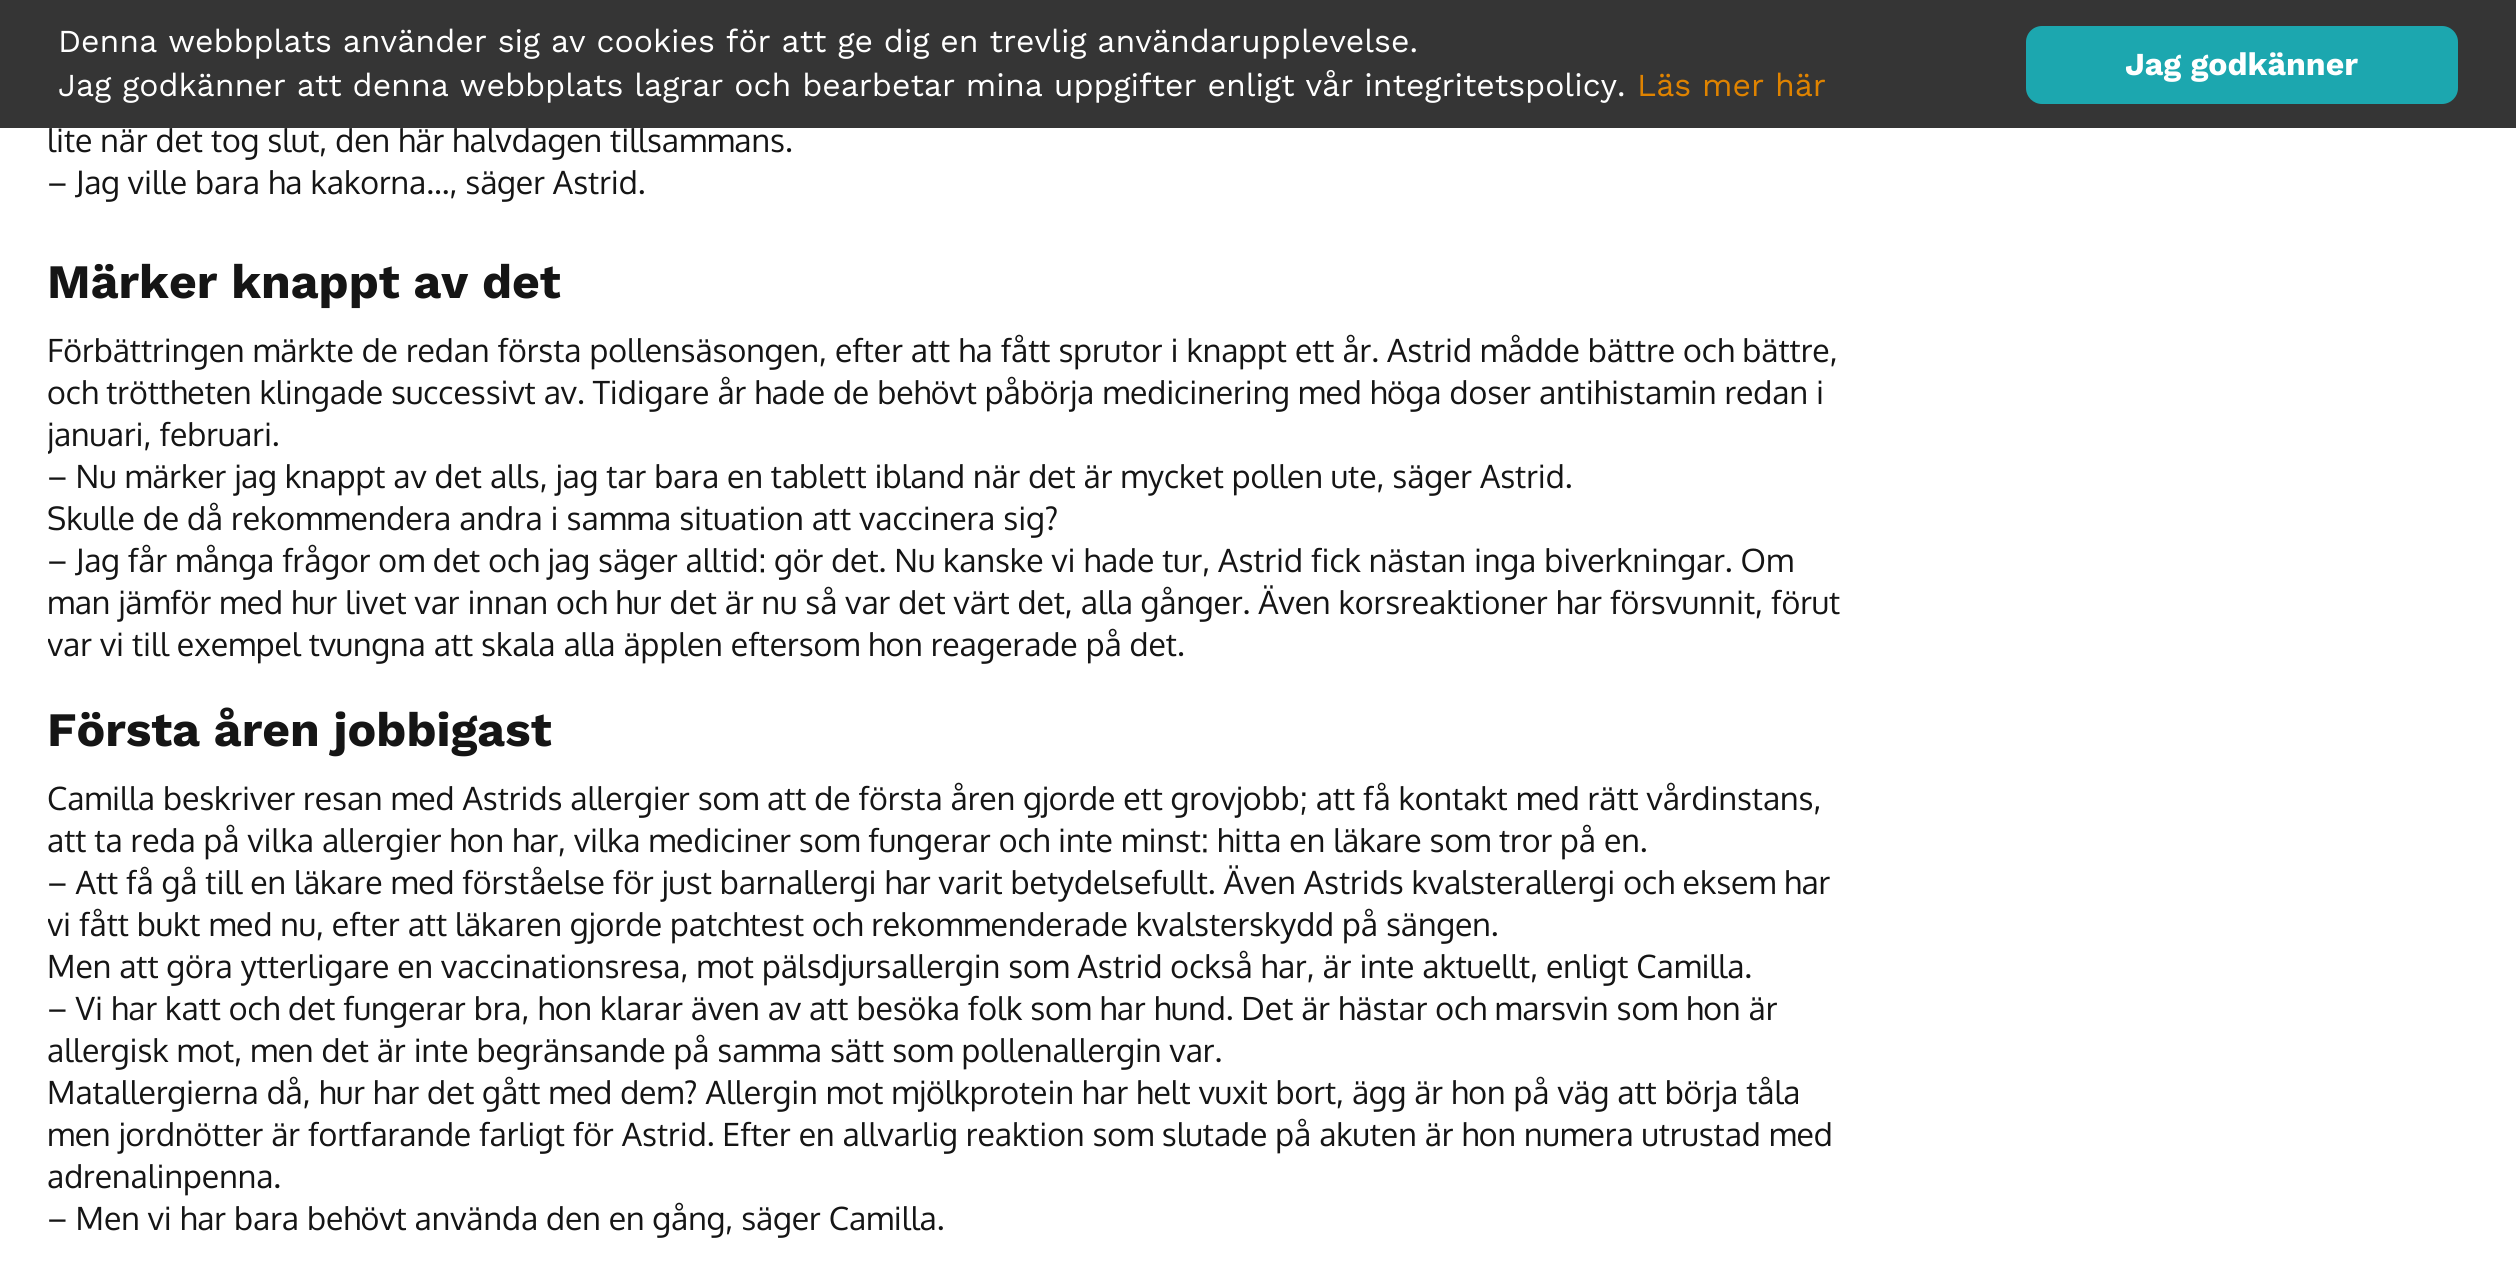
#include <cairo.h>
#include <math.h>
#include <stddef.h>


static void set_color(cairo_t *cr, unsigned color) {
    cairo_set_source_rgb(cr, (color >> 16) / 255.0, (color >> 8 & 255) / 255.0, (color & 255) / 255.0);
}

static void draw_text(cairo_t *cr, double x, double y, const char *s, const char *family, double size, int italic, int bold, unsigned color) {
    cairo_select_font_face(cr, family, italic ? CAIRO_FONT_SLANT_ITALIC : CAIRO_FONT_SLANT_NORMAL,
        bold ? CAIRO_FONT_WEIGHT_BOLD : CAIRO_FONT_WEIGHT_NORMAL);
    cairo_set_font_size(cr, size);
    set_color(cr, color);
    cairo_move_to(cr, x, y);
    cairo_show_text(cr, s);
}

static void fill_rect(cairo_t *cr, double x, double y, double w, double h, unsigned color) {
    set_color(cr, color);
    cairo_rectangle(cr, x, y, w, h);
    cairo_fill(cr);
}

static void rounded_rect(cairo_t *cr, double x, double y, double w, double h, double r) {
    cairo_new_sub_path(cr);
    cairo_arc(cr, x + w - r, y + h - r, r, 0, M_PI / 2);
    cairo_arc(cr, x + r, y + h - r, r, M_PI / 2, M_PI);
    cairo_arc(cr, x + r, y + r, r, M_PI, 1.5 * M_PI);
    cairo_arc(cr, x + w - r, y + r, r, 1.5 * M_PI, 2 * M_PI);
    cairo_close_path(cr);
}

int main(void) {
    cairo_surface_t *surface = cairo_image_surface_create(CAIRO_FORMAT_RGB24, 2516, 1268);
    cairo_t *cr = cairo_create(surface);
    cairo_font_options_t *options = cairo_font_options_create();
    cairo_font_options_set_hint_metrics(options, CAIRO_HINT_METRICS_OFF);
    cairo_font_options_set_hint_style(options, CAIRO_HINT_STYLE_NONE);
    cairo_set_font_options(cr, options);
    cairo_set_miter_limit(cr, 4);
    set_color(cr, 0xFFFFFF);
    cairo_paint(cr);
    fill_rect(cr, 0, 0, 2516, 128, 0x353535);
    draw_text(cr, 58, 52, "Denna webbplats använder sig av cookies för att ge dig en trevlig användarupplevelse.", "Work Sans", 32, 0, 0, 0xFFFFFF);
    draw_text(cr, 58, 96, "Jag godkänner att denna webbplats lagrar och bearbetar mina uppgifter enligt vår integritetspolicy.", "Work Sans", 32, 0, 0, 0xFFFFFF);
    draw_text(cr, 1637, 96, "Läs mer här", "Work Sans", 32, 0, 0, 0xDF8300);
    set_color(cr, 0x1CA7AF);
    rounded_rect(cr, 2026, 26, 432, 78, 16);
    cairo_fill(cr);
    draw_text(cr, 2125, 75, "Jag godkänner", "Work Sans", 32, 0, 1, 0xFFFFFF);
    draw_text(cr, 47, 152, "lite när det tog slut, den här halvdagen tillsammans.", "Oxygen", 32, 0, 0, 0x151515);
    draw_text(cr, 47, 194, "– Jag ville bara ha kakorna…, säger Astrid.", "Oxygen", 32, 0, 0, 0x151515);
    draw_text(cr, 47, 298, "Märker knappt av det", "Work Sans", 48, 0, 1, 0x151515);
    draw_text(cr, 47, 362, "Förbättringen märkte de redan första pollensäsongen, efter att ha fått sprutor i knappt ett år. Astrid mådde bättre och bättre,", "Oxygen", 32, 0, 0, 0x151515);
    draw_text(cr, 47, 404, "och tröttheten klingade successivt av. Tidigare år hade de behövt påbörja medicinering med höga doser antihistamin redan i", "Oxygen", 32, 0, 0, 0x151515);
    cairo_save(cr);
    cairo_rectangle(cr, 48, 0, 1800, 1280);
    cairo_clip(cr);
    draw_text(cr, 47, 446, "januari, februari.", "Oxygen", 32, 0, 0, 0x151515);
    cairo_restore(cr);
    draw_text(cr, 47, 488, "– Nu märker jag knappt av det alls, jag tar bara en tablett ibland när det är mycket pollen ute, säger Astrid.", "Oxygen", 32, 0, 0, 0x151515);
    draw_text(cr, 47, 530, "Skulle de då rekommendera andra i samma situation att vaccinera sig?", "Oxygen", 32, 0, 0, 0x151515);
    draw_text(cr, 47, 572, "– Jag får många frågor om det och jag säger alltid: gör det. Nu kanske vi hade tur, Astrid fick nästan inga biverkningar. Om", "Oxygen", 32, 0, 0, 0x151515);
    draw_text(cr, 47, 614, "man jämför med hur livet var innan och hur det är nu så var det värt det, alla gånger. Även korsreaktioner har försvunnit, förut", "Oxygen", 32, 0, 0, 0x151515);
    cairo_save(cr);
    cairo_rectangle(cr, 48, 0, 1800, 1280);
    cairo_clip(cr);
    draw_text(cr, 47, 656, "var vi till exempel tvungna att skala alla äpplen eftersom hon reagerade på det.", "Oxygen", 32, 0, 0, 0x151515);
    cairo_restore(cr);
    draw_text(cr, 47, 746, "Första åren jobbigast", "Work Sans", 48, 0, 1, 0x151515);
    draw_text(cr, 47, 810, "Camilla beskriver resan med Astrids allergier som att de första åren gjorde ett grovjobb; att få kontakt med rätt vårdinstans,", "Oxygen", 32, 0, 0, 0x151515);
    draw_text(cr, 47, 852, "att ta reda på vilka allergier hon har, vilka mediciner som fungerar och inte minst: hitta en läkare som tror på en.", "Oxygen", 32, 0, 0, 0x151515);
    draw_text(cr, 47, 894, "– Att få gå till en läkare med förståelse för just barnallergi har varit betydelsefullt. Även Astrids kvalsterallergi och eksem har", "Oxygen", 32, 0, 0, 0x151515);
    cairo_save(cr);
    cairo_rectangle(cr, 48, 0, 1800, 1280);
    cairo_clip(cr);
    draw_text(cr, 47, 936, "vi fått bukt med nu, efter att läkaren gjorde patchtest och rekommenderade kvalsterskydd på sängen.", "Oxygen", 32, 0, 0, 0x151515);
    cairo_restore(cr);
    draw_text(cr, 47, 978, "Men att göra ytterligare en vaccinationsresa, mot pälsdjursallergin som Astrid också har, är inte aktuellt, enligt Camilla.", "Oxygen", 32, 0, 0, 0x151515);
    draw_text(cr, 47, 1020, "– Vi har katt och det fungerar bra, hon klarar även av att besöka folk som har hund. Det är hästar och marsvin som hon är", "Oxygen", 32, 0, 0, 0x151515);
    draw_text(cr, 47, 1062, "allergisk mot, men det är inte begränsande på samma sätt som pollenallergin var.", "Oxygen", 32, 0, 0, 0x151515);
    draw_text(cr, 47, 1104, "Matallergierna då, hur har det gått med dem? Allergin mot mjölkprotein har helt vuxit bort, ägg är hon på väg att börja tåla", "Oxygen", 32, 0, 0, 0x151515);
    draw_text(cr, 47, 1146, "men jordnötter är fortfarande farligt för Astrid. Efter en allvarlig reaktion som slutade på akuten är hon numera utrustad med", "Oxygen", 32, 0, 0, 0x151515);
    draw_text(cr, 47, 1188, "adrenalinpenna.", "Oxygen", 32, 0, 0, 0x151515);
    draw_text(cr, 47, 1230, "– Men vi har bara behövt använda den en gång, säger Camilla.", "Oxygen", 32, 0, 0, 0x151515);
    cairo_surface_write_to_png(surface, "output.png");
    cairo_font_options_destroy(options);
    cairo_destroy(cr);
    cairo_surface_destroy(surface);
    return 0;
}
